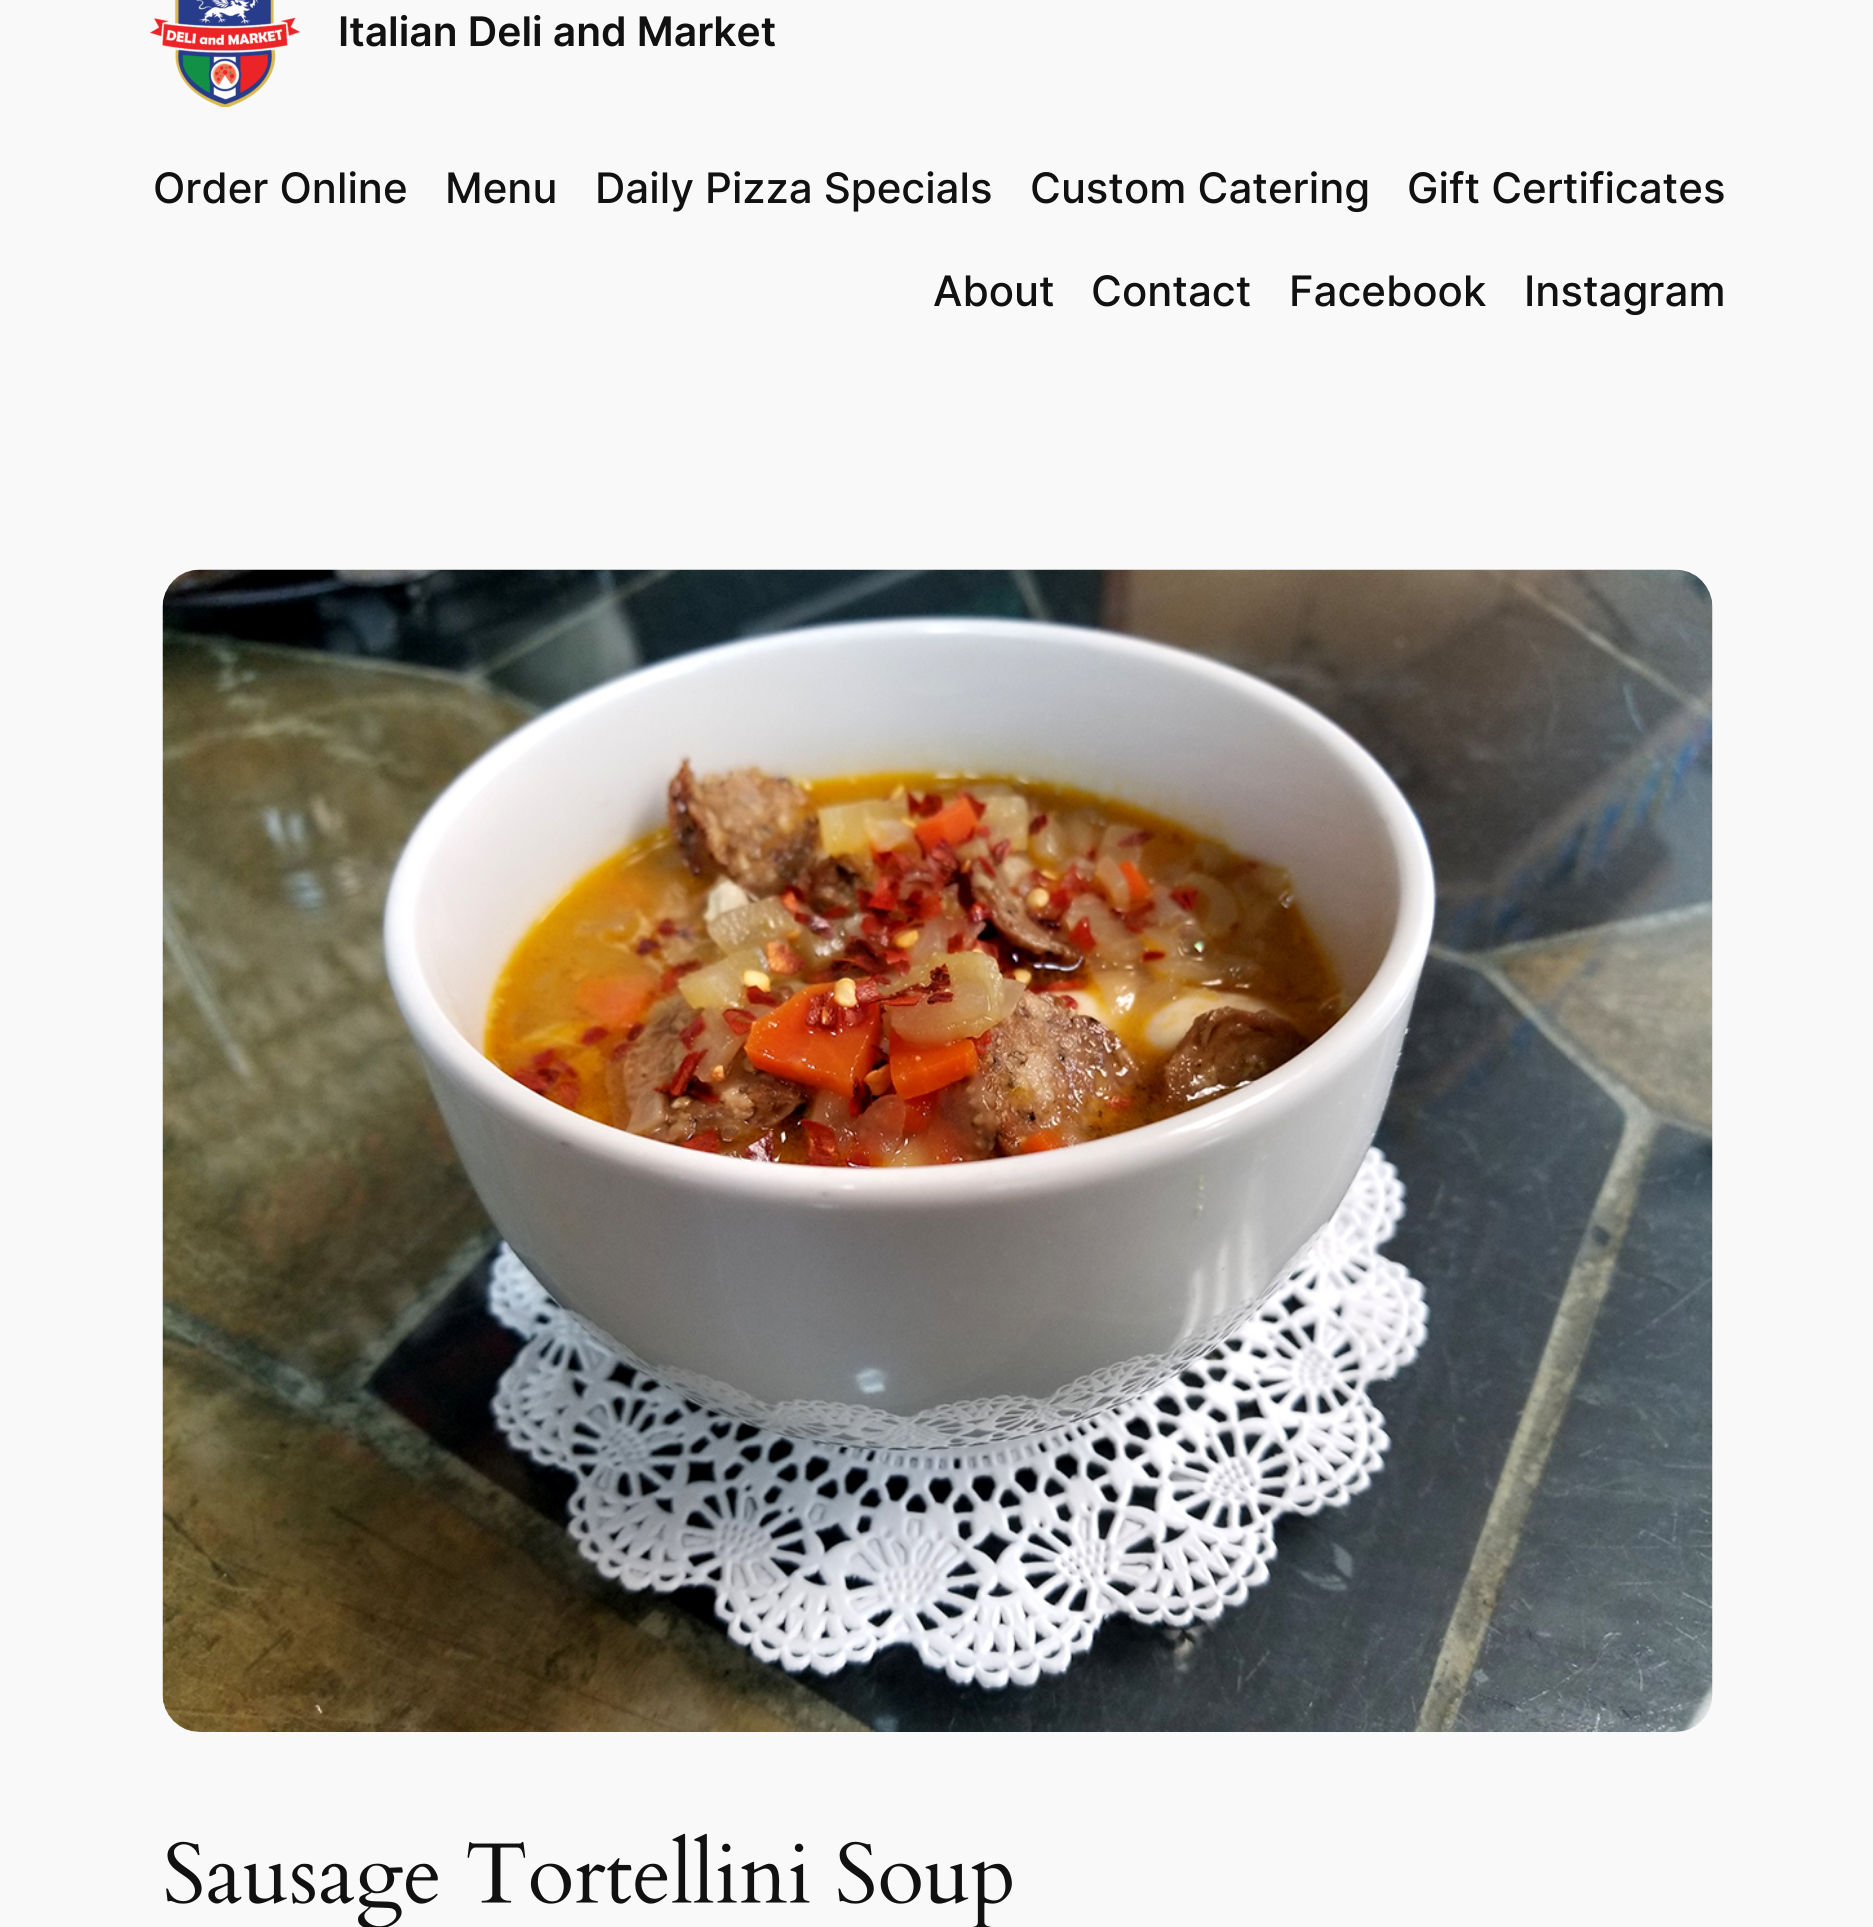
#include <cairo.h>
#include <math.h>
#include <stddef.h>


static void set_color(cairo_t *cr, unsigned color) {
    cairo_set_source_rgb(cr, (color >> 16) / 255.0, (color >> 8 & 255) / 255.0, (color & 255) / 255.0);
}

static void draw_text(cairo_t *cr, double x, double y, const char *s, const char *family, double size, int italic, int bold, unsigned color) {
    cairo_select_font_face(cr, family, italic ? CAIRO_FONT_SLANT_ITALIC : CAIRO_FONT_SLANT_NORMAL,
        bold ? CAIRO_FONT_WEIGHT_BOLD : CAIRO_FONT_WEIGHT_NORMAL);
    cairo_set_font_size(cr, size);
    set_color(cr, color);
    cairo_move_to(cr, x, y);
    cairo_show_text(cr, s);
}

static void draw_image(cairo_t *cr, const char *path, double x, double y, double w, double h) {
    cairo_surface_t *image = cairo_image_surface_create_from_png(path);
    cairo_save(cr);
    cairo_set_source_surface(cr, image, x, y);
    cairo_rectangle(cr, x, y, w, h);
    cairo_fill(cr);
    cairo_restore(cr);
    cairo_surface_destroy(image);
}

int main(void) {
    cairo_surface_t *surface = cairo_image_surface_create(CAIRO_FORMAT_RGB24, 1873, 1927);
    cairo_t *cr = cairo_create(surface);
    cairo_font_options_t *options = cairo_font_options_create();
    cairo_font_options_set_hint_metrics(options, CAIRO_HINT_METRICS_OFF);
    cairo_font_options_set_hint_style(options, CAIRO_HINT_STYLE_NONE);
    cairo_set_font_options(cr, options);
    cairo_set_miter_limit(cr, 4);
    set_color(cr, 0xF9F9F9);
    cairo_paint(cr);
    draw_image(cr, "assets/img1.png", 150, 0, 150, 107);
    draw_text(cr, 338, 46, "Italian Deli and Market", "Inter SemiBold", 40.75, 0, 0, 0x111111);
    draw_text(cr, 153, 203, "Order Online", "Inter Medium", 42, 0, 0, 0x111111);
    draw_text(cr, 445, 203, "Menu", "Inter Medium", 42, 0, 0, 0x111111);
    draw_text(cr, 595, 203, "Daily Pizza Specials", "Inter Medium", 42, 0, 0, 0x111111);
    draw_text(cr, 1030, 203, "Custom Catering", "Inter Medium", 42, 0, 0, 0x111111);
    draw_text(cr, 1407, 203, "Gift Certificates", "Inter Medium", 42, 0, 0, 0x111111);
    draw_text(cr, 933, 306, "About", "Inter Medium", 42, 0, 0, 0x111111);
    draw_text(cr, 1091, 306, "Contact", "Inter Medium", 42, 0, 0, 0x111111);
    draw_text(cr, 1289, 306, "Facebook", "Inter Medium", 42, 0, 0, 0x111111);
    draw_text(cr, 1524, 306, "Instagram", "Inter Medium", 42, 0, 0, 0x111111);
    draw_image(cr, "assets/img2.png", 162, 569, 1551, 1163);
    draw_image(cr, "assets/img3.png", 166, 1833, 846, 94);
    cairo_surface_write_to_png(surface, "output.png");
    cairo_font_options_destroy(options);
    cairo_destroy(cr);
    cairo_surface_destroy(surface);
    return 0;
}
